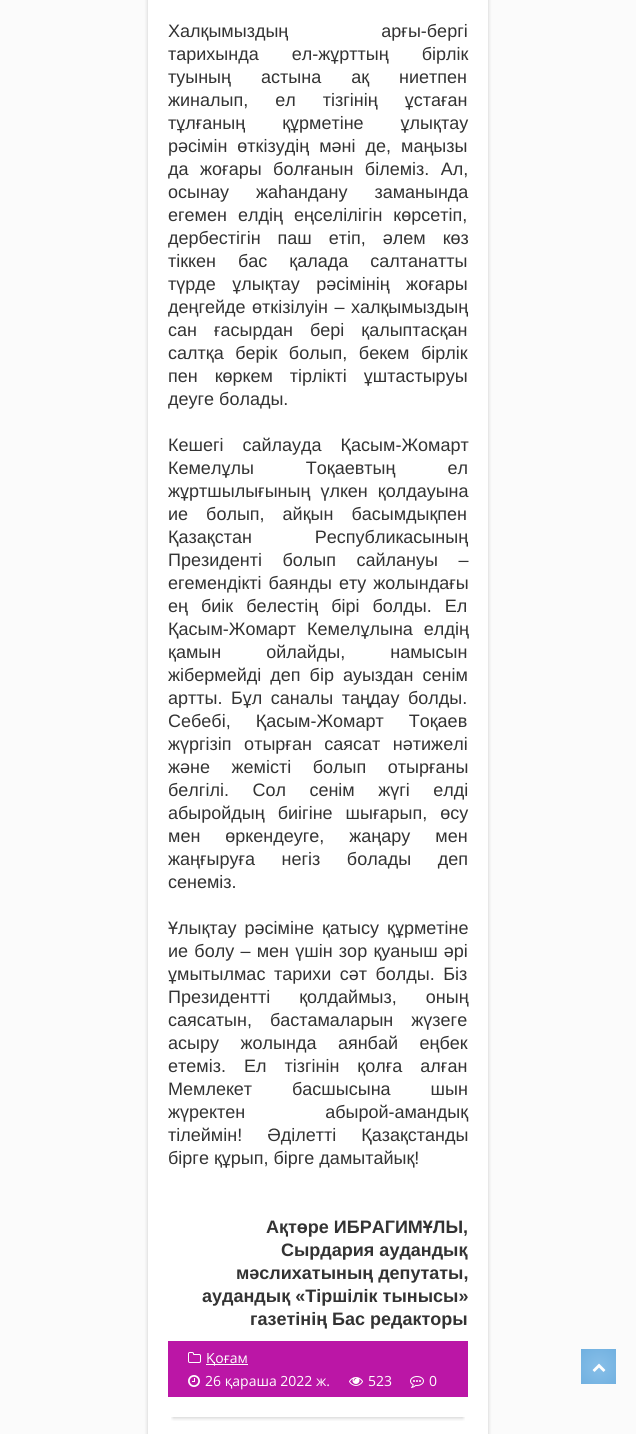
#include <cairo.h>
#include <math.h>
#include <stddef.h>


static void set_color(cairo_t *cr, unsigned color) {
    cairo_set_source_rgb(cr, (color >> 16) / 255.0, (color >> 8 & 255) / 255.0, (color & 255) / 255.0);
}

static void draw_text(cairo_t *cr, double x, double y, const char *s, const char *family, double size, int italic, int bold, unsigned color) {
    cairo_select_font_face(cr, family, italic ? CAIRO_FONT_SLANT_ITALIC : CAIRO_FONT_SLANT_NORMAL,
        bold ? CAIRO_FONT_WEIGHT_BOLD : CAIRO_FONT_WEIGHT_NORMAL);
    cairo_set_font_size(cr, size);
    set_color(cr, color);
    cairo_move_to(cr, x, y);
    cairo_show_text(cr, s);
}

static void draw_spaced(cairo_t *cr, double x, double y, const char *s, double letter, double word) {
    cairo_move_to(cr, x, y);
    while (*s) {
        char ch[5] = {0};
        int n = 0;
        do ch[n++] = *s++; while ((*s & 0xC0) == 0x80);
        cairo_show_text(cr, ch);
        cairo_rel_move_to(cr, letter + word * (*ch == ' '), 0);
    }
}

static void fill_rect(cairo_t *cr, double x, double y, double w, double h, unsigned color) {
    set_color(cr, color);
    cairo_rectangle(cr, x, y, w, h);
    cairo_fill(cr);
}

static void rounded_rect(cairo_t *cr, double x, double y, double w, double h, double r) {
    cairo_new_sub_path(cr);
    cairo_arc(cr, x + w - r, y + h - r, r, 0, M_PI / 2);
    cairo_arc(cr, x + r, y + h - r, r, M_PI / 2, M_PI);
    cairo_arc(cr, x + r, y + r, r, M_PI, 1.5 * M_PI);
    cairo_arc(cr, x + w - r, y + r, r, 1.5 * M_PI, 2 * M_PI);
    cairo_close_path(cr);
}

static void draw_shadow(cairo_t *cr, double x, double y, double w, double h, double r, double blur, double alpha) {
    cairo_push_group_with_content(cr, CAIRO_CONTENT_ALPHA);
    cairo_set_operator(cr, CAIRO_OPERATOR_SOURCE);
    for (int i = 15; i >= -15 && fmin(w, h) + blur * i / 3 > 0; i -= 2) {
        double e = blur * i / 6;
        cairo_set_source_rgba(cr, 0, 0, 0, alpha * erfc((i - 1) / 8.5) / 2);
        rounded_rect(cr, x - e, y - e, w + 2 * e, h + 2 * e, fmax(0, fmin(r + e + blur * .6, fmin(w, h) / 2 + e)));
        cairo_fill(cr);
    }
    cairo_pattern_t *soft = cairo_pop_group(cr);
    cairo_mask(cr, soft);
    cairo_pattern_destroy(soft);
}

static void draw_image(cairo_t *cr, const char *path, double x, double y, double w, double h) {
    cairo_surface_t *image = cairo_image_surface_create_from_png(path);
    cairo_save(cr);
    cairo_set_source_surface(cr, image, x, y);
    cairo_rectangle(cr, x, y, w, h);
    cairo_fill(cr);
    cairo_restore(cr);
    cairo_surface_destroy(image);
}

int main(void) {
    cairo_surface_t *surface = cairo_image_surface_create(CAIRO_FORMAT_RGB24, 636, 1434);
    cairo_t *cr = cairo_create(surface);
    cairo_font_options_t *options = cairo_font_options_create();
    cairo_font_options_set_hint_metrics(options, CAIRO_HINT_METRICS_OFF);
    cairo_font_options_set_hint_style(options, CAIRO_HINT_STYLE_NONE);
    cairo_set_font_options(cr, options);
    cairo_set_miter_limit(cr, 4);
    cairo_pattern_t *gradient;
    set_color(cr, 0xFBFBFB);
    cairo_paint(cr);
    set_color(cr, 0x000000);
    draw_shadow(cr, 148, -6, 340, 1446, 0, 2, 0.2);
    fill_rect(cr, 148, 0, 340, 1434, 0xFFFFFF);
    cairo_save(cr);
    cairo_rectangle(cr, 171, 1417, 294, 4);
    cairo_clip(cr);
    set_color(cr, 0x000000);
    draw_shadow(cr, 173, -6, 290, 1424, 0, 2, 0.2);
    cairo_restore(cr);
    cairo_select_font_face(cr, "Liberation Sans", CAIRO_FONT_SLANT_NORMAL, CAIRO_FONT_WEIGHT_NORMAL);
    cairo_set_font_size(cr, 18);
    set_color(cr, 0x333333);
    draw_spaced(cr, 168, 37, "Халқымыздың арғы-бергі", 0, 88);
    draw_spaced(cr, 168, 60, "тарихында ел-жұрттың бірлік", 0, 28);
    draw_spaced(cr, 168, 83, "туының астына ақ ниетпен", 0, 25);
    draw_spaced(cr, 168, 106, "жиналып, ел тізгінің ұстаған", 0, 22);
    draw_spaced(cr, 168, 129, "тұлғаның құрметіне ұлықтау", 0, 32);
    draw_spaced(cr, 168, 152, "рәсімін өткізудің мәні де, маңызы", 0, 5);
    draw_spaced(cr, 168, 175, "да жоғары болғанын білеміз. Ал,", 0, 6.5);
    draw_spaced(cr, 168, 198, "осынау жаһандану заманында", 0, 22);
    draw_spaced(cr, 168, 221, "егемен елдің еңселілігін көрсетіп,", 0, 6);
    draw_spaced(cr, 168, 244, "дербестігін паш етіп, әлем көз", 0, 12);
    draw_spaced(cr, 168, 267, "тіккен бас қалада салтанатты", 0, 17);
    draw_spaced(cr, 168, 290, "түрде ұлықтау рәсімінің жоғары", 0, 11.5);
    draw_spaced(cr, 168, 313, "деңгейде өткізілуін – халқымыздың", 0, 1.5);
    draw_spaced(cr, 168, 336, "сан ғасырдан бері қалыптасқан", 0, 12);
    draw_spaced(cr, 168, 359, "салтқа берік болып, бекем бірлік", 0, 6.5);
    draw_spaced(cr, 168, 382, "пен көркем тірлікті ұштастыруы", 0, 12);
    draw_text(cr, 168, 405, "деуге болады.", "Liberation Sans", 18, 0, 0, 0x333333);
    draw_spaced(cr, 168, 451, "Кешегі сайлауда Қасым-Жомарт", 0, 14);
    draw_spaced(cr, 168, 474, "Кемелұлы Тоқаевтың ел", 0, 47);
    draw_spaced(cr, 168, 497, "жұртшылығының үлкен қолдауына", 0, 5);
    draw_spaced(cr, 168, 520, "ие болып, айқын басымдықпен", 0, 13);
    draw_spaced(cr, 168, 543, "Қазақстан Республикасының", 0, 58);
    draw_spaced(cr, 168, 566, "Президенті болып сайлануы –", 0, 15.5);
    draw_spaced(cr, 168, 589, "егемендікті баянды ету жолындағы", 0, 2);
    draw_spaced(cr, 168, 612, "ең биік белестің бірі болды. Ел", 0, 8);
    draw_spaced(cr, 168, 635, "Қасым-Жомарт Кемелұлына елдің", 0, 6);
    draw_spaced(cr, 168, 658, "қамын ойлайды, намысын", 0, 40);
    draw_spaced(cr, 168, 681, "жібермейді деп бір ауыздан сенім", 0, 4);
    draw_spaced(cr, 168, 704, "артты. Бұл саналы таңдау болды.", 0, 3.5);
    draw_spaced(cr, 168, 727, "Себебі, Қасым-Жомарт Тоқаев", 0, 20);
    draw_spaced(cr, 168, 750, "жүргізіп отырған саясат нәтижелі", 0, 7.5);
    draw_spaced(cr, 168, 773, "және жемісті болып отырғаны", 0, 16.5);
    draw_spaced(cr, 168, 796, "белгілі. Сол сенім жүгі елді", 0, 18.5);
    draw_spaced(cr, 168, 819, "абыройдың биігіне шығарып, өсу", 0, 8);
    draw_spaced(cr, 168, 842, "мен өркендеуге, жаңару мен", 0, 20);
    draw_spaced(cr, 168, 865, "жаңғыруға негіз болады деп", 0, 21.5);
    draw_text(cr, 168, 888, "сенеміз.", "Liberation Sans", 18, 0, 0, 0x333333);
    draw_spaced(cr, 168, 934, "Ұлықтау рәсіміне қатысу құрметіне", 0, 3);
    draw_spaced(cr, 168, 957, "ие болу – мен үшін зор қуаныш әрі", 0, 1.25);
    draw_spaced(cr, 168, 980, "ұмытылмас тарихи сәт болды. Біз", 0, 3.5);
    draw_spaced(cr, 168, 1003, "Президентті қолдаймыз, оның", 0, 24);
    draw_spaced(cr, 168, 1026, "саясатын, бастамаларын жүзеге", 0, 13);
    draw_spaced(cr, 168, 1049, "асыру жолында аянбай еңбек", 0, 16.5);
    draw_spaced(cr, 168, 1072, "етеміз. Ел тізгінін қолға алған", 0, 13);
    draw_spaced(cr, 168, 1095, "Мемлекет басшысына шын", 0, 35);
    cairo_save(cr);
    cairo_rectangle(cr, 168, 0, 300, 1331);
    cairo_clip(cr);
    draw_spaced(cr, 168, 1118, "жүректен абырой-амандық", 0, 75);
    cairo_restore(cr);
    draw_spaced(cr, 168, 1141, "тілеймін! Әділетті Қазақстанды", 0, 20);
    draw_text(cr, 168, 1164, "бірге құрып, бірге дамытайық!", "Liberation Sans", 18, 0, 0, 0x333333);
    draw_text(cr, 266, 1233, "Ақтөре ИБРАГИМҰЛЫ,", "Liberation Sans", 18, 0, 1, 0x333333);
    draw_text(cr, 281, 1256, "Сырдария аудандық", "Liberation Sans", 18, 0, 1, 0x333333);
    draw_text(cr, 236, 1279, "мәслихатының депутаты,", "Liberation Sans", 18, 0, 1, 0x333333);
    draw_text(cr, 202, 1302, "аудандық «Тіршілік тынысы»", "Liberation Sans", 18, 0, 1, 0x333333);
    draw_text(cr, 250, 1325, "газетінің Бас редакторы", "Liberation Sans", 18, 0, 1, 0x333333);
    fill_rect(cr, 168, 1341, 300, 56, 0xBB16A6);
    draw_image(cr, "assets/img1.png", 188, 1352, 13, 11);
    fill_rect(cr, 206, 1364, 42, 1, 0xFFFFFF);
    draw_text(cr, 206, 1363, "Қоғам", "Open Sans", 14, 0, 0, 0xFFFFFF);
    draw_image(cr, "assets/img2.png", 188, 1375, 12, 12);
    draw_text(cr, 205, 1386, "26 қараша 2022 ж.", "Open Sans", 14, 0, 0, 0xFFFFFF);
    draw_image(cr, "assets/img3.png", 349, 1377, 14, 9);
    draw_text(cr, 368, 1386, "523", "Open Sans", 14, 0, 0, 0xFFFFFF);
    draw_image(cr, "assets/img4.png", 410, 1376, 14, 12);
    draw_text(cr, 429, 1386, "0", "Open Sans", 14, 0, 0, 0xFFFFFF);
    gradient = cairo_pattern_create_radial(599, 1367, 0, 599, 1367, 25);
    cairo_pattern_add_color_stop_rgba(gradient, 0, 0.533, 0.749, 0.91, 1);
    cairo_pattern_add_color_stop_rgba(gradient, 1, 0.439, 0.69, 0.878, 1);
    cairo_set_source(cr, gradient);
    cairo_pattern_destroy(gradient);
    cairo_rectangle(cr, 581, 1349, 35, 35);
    cairo_fill(cr);
    draw_image(cr, "assets/img5.png", 592, 1363, 14, 9);
    cairo_surface_write_to_png(surface, "output.png");
    cairo_font_options_destroy(options);
    cairo_destroy(cr);
    cairo_surface_destroy(surface);
    return 0;
}
